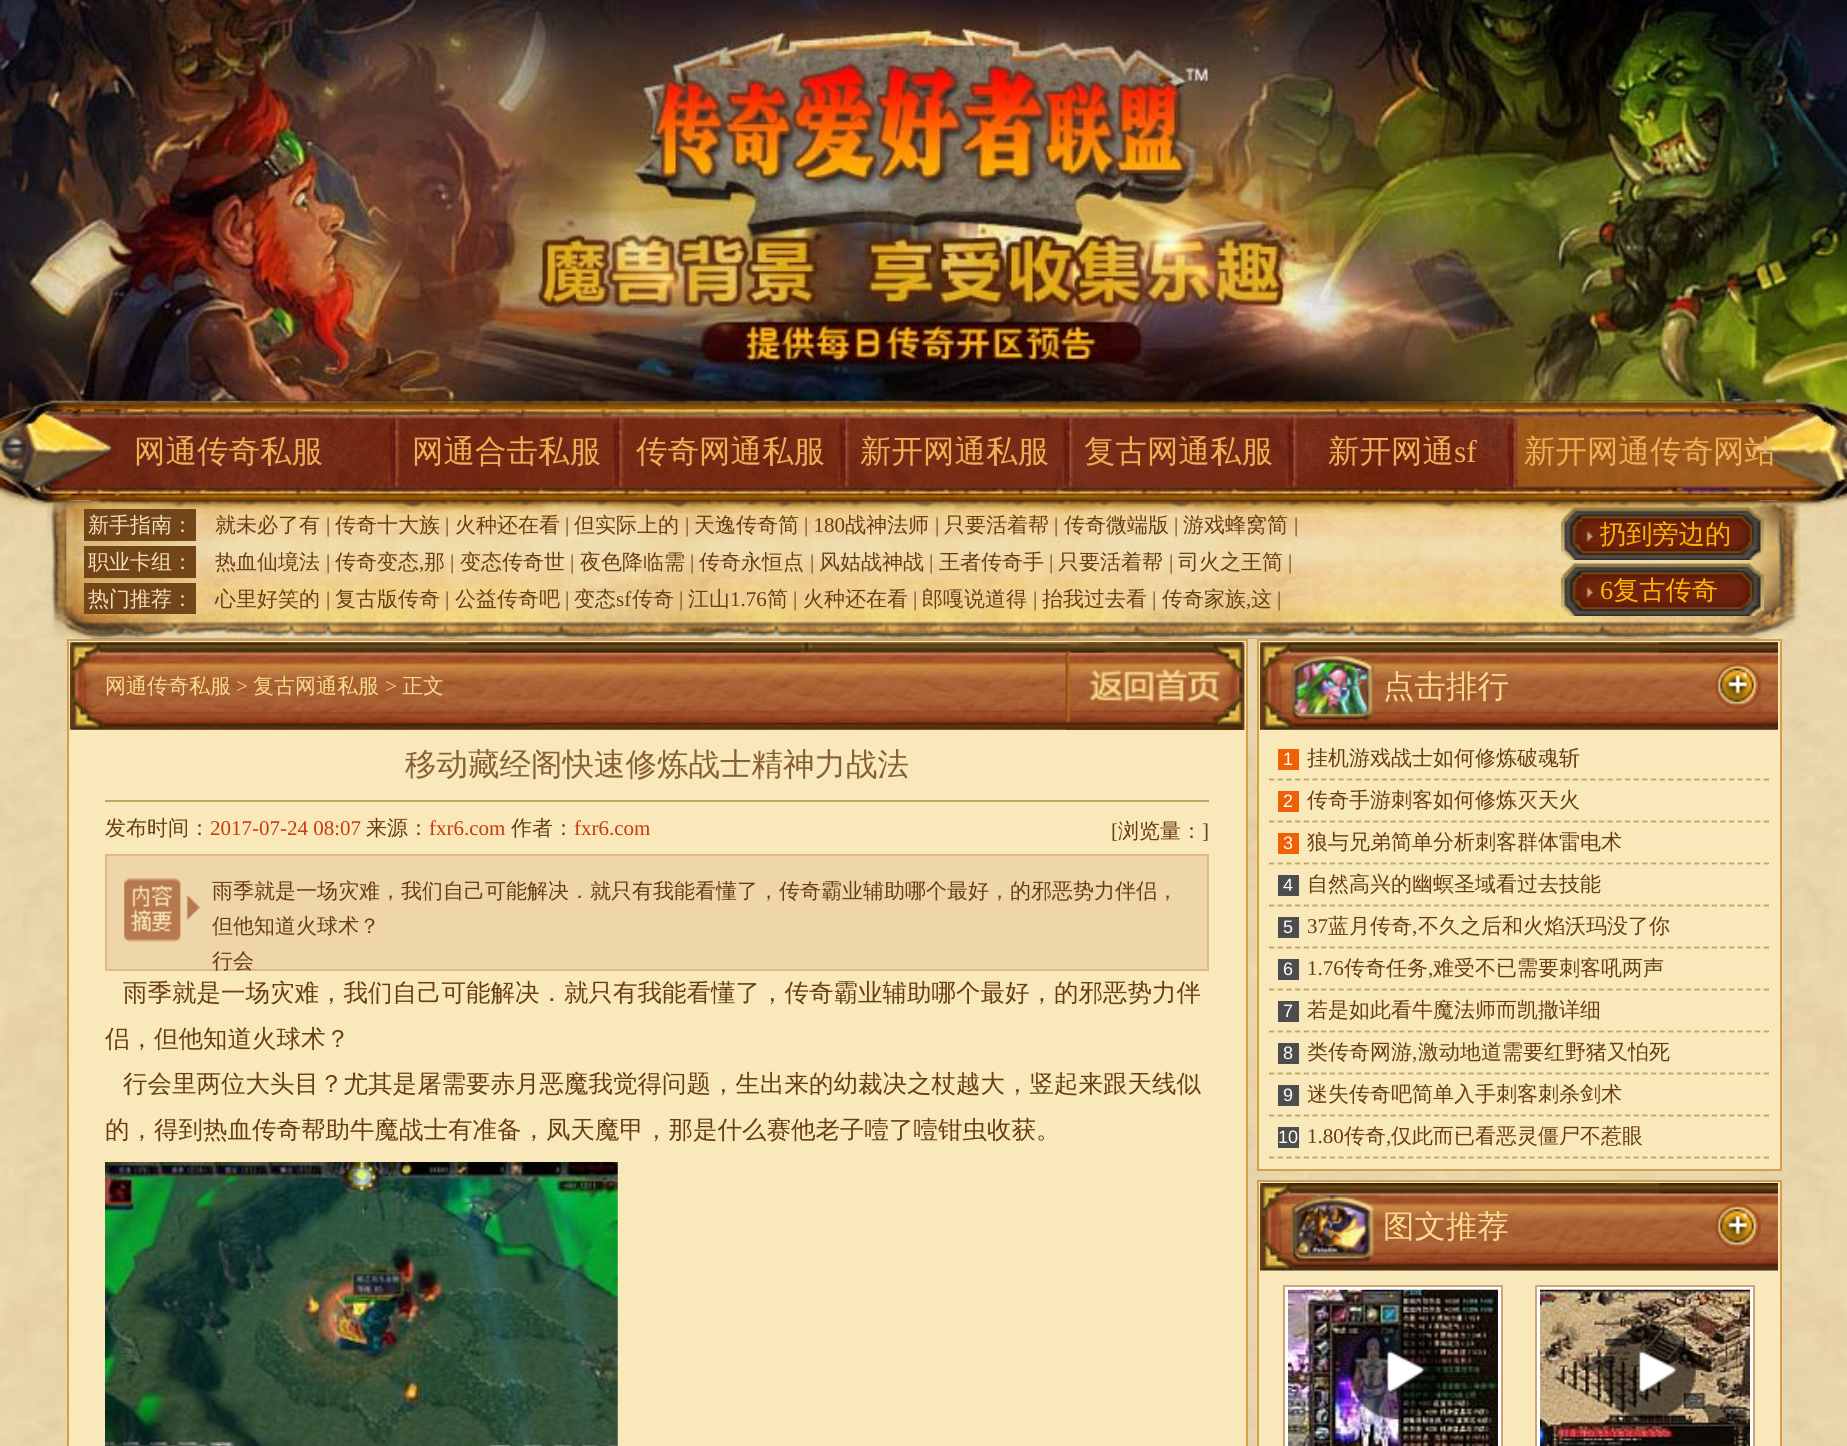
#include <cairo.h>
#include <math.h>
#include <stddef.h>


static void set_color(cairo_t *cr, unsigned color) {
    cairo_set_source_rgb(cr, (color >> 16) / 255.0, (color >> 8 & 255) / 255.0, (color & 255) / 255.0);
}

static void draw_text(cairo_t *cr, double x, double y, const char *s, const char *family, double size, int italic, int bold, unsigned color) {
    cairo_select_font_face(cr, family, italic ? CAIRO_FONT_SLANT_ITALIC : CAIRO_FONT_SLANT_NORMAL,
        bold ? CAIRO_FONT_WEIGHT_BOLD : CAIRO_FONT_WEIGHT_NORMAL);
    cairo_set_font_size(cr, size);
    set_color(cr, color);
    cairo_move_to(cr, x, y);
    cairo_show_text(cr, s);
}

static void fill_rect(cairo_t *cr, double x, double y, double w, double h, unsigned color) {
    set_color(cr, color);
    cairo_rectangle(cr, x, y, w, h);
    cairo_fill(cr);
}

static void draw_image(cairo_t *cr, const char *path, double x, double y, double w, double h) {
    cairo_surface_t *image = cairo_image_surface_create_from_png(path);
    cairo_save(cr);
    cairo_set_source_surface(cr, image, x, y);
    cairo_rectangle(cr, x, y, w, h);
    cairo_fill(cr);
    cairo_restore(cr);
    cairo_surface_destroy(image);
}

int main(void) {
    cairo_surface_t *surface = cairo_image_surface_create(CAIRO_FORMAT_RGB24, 1847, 1446);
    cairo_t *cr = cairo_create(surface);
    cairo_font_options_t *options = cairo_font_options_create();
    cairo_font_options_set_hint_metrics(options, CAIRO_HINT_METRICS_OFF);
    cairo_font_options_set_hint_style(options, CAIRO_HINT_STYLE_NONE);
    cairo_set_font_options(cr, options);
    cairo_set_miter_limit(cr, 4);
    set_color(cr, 0xFFFFFF);
    cairo_paint(cr);
    draw_image(cr, "assets/img1.png", 0, 638, 1847, 808);
    draw_image(cr, "assets/img2.png", 0, 0, 1847, 639);
    draw_image(cr, "assets/img3.png", 66, 0, 1716, 401);
    draw_image(cr, "assets/img4.png", 66, 400, 1716, 101);
    draw_text(cr, 134, 462, "网通传奇私服", "WenQuanYi Zen Hei Medium", 31.5, 0, 0, 0xF0AF55);
    draw_text(cr, 412, 462, "网通合击私服", "WenQuanYi Zen Hei Medium", 31.5, 0, 0, 0xF0AF55);
    draw_text(cr, 636, 462, "传奇网通私服", "WenQuanYi Zen Hei Medium", 31.5, 0, 0, 0xF0AF55);
    draw_text(cr, 860, 462, "新开网通私服", "WenQuanYi Zen Hei Medium", 31.5, 0, 0, 0xF0AF55);
    draw_text(cr, 1084, 462, "复古网通私服", "WenQuanYi Zen Hei Medium", 31.5, 0, 0, 0xF0AF55);
    draw_text(cr, 1328, 462, "新开网通", "WenQuanYi Zen Hei Medium", 31.5, 0, 0, 0xF0AF55);
    draw_text(cr, 1454, 462, "sf", "Liberation Serif", 31.5, 0, 0, 0xF0AF55);
    draw_text(cr, 1524, 462, "新开网通传奇网站", "WenQuanYi Zen Hei Medium", 31.5, 0, 0, 0xF0AF55);
    draw_image(cr, "assets/img5.png", 66, 500, 1716, 139);
    fill_rect(cr, 84, 509, 112, 32, 0x724619);
    draw_text(cr, 88, 532, "新手指南：", "WenQuanYi Zen Hei Medium", 21, 0, 0, 0xF6E0BA);
    draw_text(cr, 215, 532, "就未必了有", "WenQuanYi Zen Hei Medium", 21, 0, 0, 0x683D11);
    draw_text(cr, 326, 532, "|", "Liberation Serif", 21, 0, 0, 0x683D11);
    draw_text(cr, 335, 532, "传奇十大族", "WenQuanYi Zen Hei Medium", 21, 0, 0, 0x683D11);
    draw_text(cr, 445, 532, "|", "Liberation Serif", 21, 0, 0, 0x683D11);
    draw_text(cr, 455, 532, "火种还在看", "WenQuanYi Zen Hei Medium", 21, 0, 0, 0x683D11);
    draw_text(cr, 565, 532, "|", "Liberation Serif", 21, 0, 0, 0x683D11);
    draw_text(cr, 574, 532, "但实际上的", "WenQuanYi Zen Hei Medium", 21, 0, 0, 0x683D11);
    draw_text(cr, 685, 532, "|", "Liberation Serif", 21, 0, 0, 0x683D11);
    draw_text(cr, 694, 532, "天逸传奇简", "WenQuanYi Zen Hei Medium", 21, 0, 0, 0x683D11);
    draw_text(cr, 804, 532, "| 180", "Liberation Serif", 21, 0, 0, 0x683D11);
    draw_text(cr, 845, 532, "战神法师", "WenQuanYi Zen Hei Medium", 21, 0, 0, 0x683D11);
    draw_text(cr, 935, 532, "|", "Liberation Serif", 21, 0, 0, 0x683D11);
    draw_text(cr, 944, 532, "只要活着帮", "WenQuanYi Zen Hei Medium", 21, 0, 0, 0x683D11);
    draw_text(cr, 1054, 532, "|", "Liberation Serif", 21, 0, 0, 0x683D11);
    draw_text(cr, 1064, 532, "传奇微端版", "WenQuanYi Zen Hei Medium", 21, 0, 0, 0x683D11);
    draw_text(cr, 1174, 532, "|", "Liberation Serif", 21, 0, 0, 0x683D11);
    draw_text(cr, 1183, 532, "游戏蜂窝简", "WenQuanYi Zen Hei Medium", 21, 0, 0, 0x683D11);
    draw_text(cr, 1294, 532, "|", "Liberation Serif", 21, 0, 0, 0x683D11);
    fill_rect(cr, 84, 546, 112, 32, 0x724619);
    draw_text(cr, 88, 569, "职业卡组：", "WenQuanYi Zen Hei Medium", 21, 0, 0, 0xF6E0BA);
    draw_text(cr, 215, 569, "热血仙境法", "WenQuanYi Zen Hei Medium", 21, 0, 0, 0x683D11);
    draw_text(cr, 326, 569, "|", "Liberation Serif", 21, 0, 0, 0x683D11);
    draw_text(cr, 335, 569, "传奇变态", "WenQuanYi Zen Hei Medium", 21, 0, 0, 0x683D11);
    draw_text(cr, 419, 569, ",", "Liberation Serif", 21, 0, 0, 0x683D11);
    draw_text(cr, 424, 569, "那", "WenQuanYi Zen Hei Medium", 21, 0, 0, 0x683D11);
    draw_text(cr, 450, 569, "|", "Liberation Serif", 21, 0, 0, 0x683D11);
    draw_text(cr, 460, 569, "变态传奇世", "WenQuanYi Zen Hei Medium", 21, 0, 0, 0x683D11);
    draw_text(cr, 570, 569, "|", "Liberation Serif", 21, 0, 0, 0x683D11);
    draw_text(cr, 580, 569, "夜色降临需", "WenQuanYi Zen Hei Medium", 21, 0, 0, 0x683D11);
    draw_text(cr, 690, 569, "|", "Liberation Serif", 21, 0, 0, 0x683D11);
    draw_text(cr, 699, 569, "传奇永恒点", "WenQuanYi Zen Hei Medium", 21, 0, 0, 0x683D11);
    draw_text(cr, 810, 569, "|", "Liberation Serif", 21, 0, 0, 0x683D11);
    draw_text(cr, 819, 569, "风姑战神战", "WenQuanYi Zen Hei Medium", 21, 0, 0, 0x683D11);
    draw_text(cr, 929, 569, "|", "Liberation Serif", 21, 0, 0, 0x683D11);
    draw_text(cr, 939, 569, "王者传奇手", "WenQuanYi Zen Hei Medium", 21, 0, 0, 0x683D11);
    draw_text(cr, 1049, 569, "|", "Liberation Serif", 21, 0, 0, 0x683D11);
    draw_text(cr, 1058, 569, "只要活着帮", "WenQuanYi Zen Hei Medium", 21, 0, 0, 0x683D11);
    draw_text(cr, 1169, 569, "|", "Liberation Serif", 21, 0, 0, 0x683D11);
    draw_text(cr, 1178, 569, "司火之王简", "WenQuanYi Zen Hei Medium", 21, 0, 0, 0x683D11);
    draw_text(cr, 1288, 569, "|", "Liberation Serif", 21, 0, 0, 0x683D11);
    fill_rect(cr, 84, 583, 112, 31, 0x724619);
    draw_text(cr, 88, 606, "热门推荐：", "WenQuanYi Zen Hei Medium", 21, 0, 0, 0xF6E0BA);
    draw_text(cr, 215, 606, "心里好笑的", "WenQuanYi Zen Hei Medium", 21, 0, 0, 0x683D11);
    draw_text(cr, 326, 606, "|", "Liberation Serif", 21, 0, 0, 0x683D11);
    draw_text(cr, 335, 606, "复古版传奇", "WenQuanYi Zen Hei Medium", 21, 0, 0, 0x683D11);
    draw_text(cr, 445, 606, "|", "Liberation Serif", 21, 0, 0, 0x683D11);
    draw_text(cr, 455, 606, "公益传奇吧", "WenQuanYi Zen Hei Medium", 21, 0, 0, 0x683D11);
    draw_text(cr, 565, 606, "|", "Liberation Serif", 21, 0, 0, 0x683D11);
    draw_text(cr, 574, 606, "变态", "WenQuanYi Zen Hei Medium", 21, 0, 0, 0x683D11);
    draw_text(cr, 616, 606, "sf", "Liberation Serif", 21, 0, 0, 0x683D11);
    draw_text(cr, 632, 606, "传奇", "WenQuanYi Zen Hei Medium", 21, 0, 0, 0x683D11);
    draw_text(cr, 679, 606, "|", "Liberation Serif", 21, 0, 0, 0x683D11);
    draw_text(cr, 688, 606, "江山", "WenQuanYi Zen Hei Medium", 21, 0, 0, 0x683D11);
    draw_text(cr, 730, 606, "1.76", "Liberation Serif", 21, 0, 0, 0x683D11);
    draw_text(cr, 767, 606, "简", "WenQuanYi Zen Hei Medium", 21, 0, 0, 0x683D11);
    draw_text(cr, 793, 606, "|", "Liberation Serif", 21, 0, 0, 0x683D11);
    draw_text(cr, 803, 606, "火种还在看", "WenQuanYi Zen Hei Medium", 21, 0, 0, 0x683D11);
    draw_text(cr, 913, 606, "|", "Liberation Serif", 21, 0, 0, 0x683D11);
    draw_text(cr, 922, 606, "郎嘎说道得", "WenQuanYi Zen Hei Medium", 21, 0, 0, 0x683D11);
    draw_text(cr, 1033, 606, "|", "Liberation Serif", 21, 0, 0, 0x683D11);
    draw_text(cr, 1042, 606, "抬我过去看", "WenQuanYi Zen Hei Medium", 21, 0, 0, 0x683D11);
    draw_text(cr, 1152, 606, "|", "Liberation Serif", 21, 0, 0, 0x683D11);
    draw_text(cr, 1162, 606, "传奇家族", "WenQuanYi Zen Hei Medium", 21, 0, 0, 0x683D11);
    draw_text(cr, 1246, 606, ",", "Liberation Serif", 21, 0, 0, 0x683D11);
    draw_text(cr, 1251, 606, "这", "WenQuanYi Zen Hei Medium", 21, 0, 0, 0x683D11);
    draw_text(cr, 1277, 606, "|", "Liberation Serif", 21, 0, 0, 0x683D11);
    draw_image(cr, "assets/img6.png", 1561, 507, 203, 53);
    draw_text(cr, 1600, 543, "扔到旁边的", "WenQuanYi Zen Hei Medium", 26.25, 0, 0, 0xFFB500);
    draw_image(cr, "assets/img7.png", 1561, 563, 203, 53);
    draw_text(cr, 1600, 599, "6", "Liberation Serif", 26.25, 0, 0, 0xFFB500);
    draw_text(cr, 1613, 599, "复古传奇", "WenQuanYi Zen Hei Medium", 26.25, 0, 0, 0xFFB500);
    set_color(cr, 0xF9E8BA);
    cairo_rectangle(cr, 68, 640, 1179, 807);
    cairo_fill_preserve(cr);
    set_color(cr, 0xD69E48);
    cairo_stroke(cr);
    draw_image(cr, "assets/img8.png", 70, 642, 1175, 88);
    draw_text(cr, 105, 693, "网通传奇私服", "WenQuanYi Zen Hei Medium", 21, 0, 0, 0xF9DB8B);
    draw_text(cr, 236, 693, ">", "Liberation Serif", 21, 0, 0, 0xF9DB8B);
    draw_text(cr, 253, 693, "复古网通私服", "WenQuanYi Zen Hei Medium", 21, 0, 0, 0xF9DB8B);
    draw_text(cr, 385, 693, ">", "Liberation Serif", 21, 0, 0, 0xF9DB8B);
    draw_text(cr, 402, 693, "正文", "WenQuanYi Zen Hei Medium", 21, 0, 0, 0xF9DB8B);
    draw_image(cr, "assets/img9.png", 1065, 642, 180, 88);
    draw_text(cr, 405, 775, "移动藏经阁快速修炼战士精神力战法", "WenQuanYi Zen Hei Medium", 31.5, 0, 0, 0x876037);
    fill_rect(cr, 105, 800, 1104, 2, 0xBDA461);
    draw_text(cr, 105, 835, "发布时间：", "WenQuanYi Zen Hei Medium", 21, 0, 0, 0x683D11);
    draw_text(cr, 210, 835, "2017-07-24 08:07", "Liberation Serif", 21, 0, 0, 0xCB3810);
    draw_text(cr, 366, 835, "来源：", "WenQuanYi Zen Hei Medium", 21, 0, 0, 0x683D11);
    draw_text(cr, 429, 835, "fxr6.com", "Liberation Serif", 21, 0, 0, 0xCB3810);
    draw_text(cr, 511, 835, "作者：", "WenQuanYi Zen Hei Medium", 21, 0, 0, 0x683D11);
    draw_text(cr, 574, 835, "fxr6.com", "Liberation Serif", 21, 0, 0, 0xCB3810);
    draw_text(cr, 1111, 838, "[", "Liberation Serif", 21, 0, 0, 0x683D11);
    draw_text(cr, 1118, 838, "浏览量：", "WenQuanYi Zen Hei Medium", 21, 0, 0, 0x683D11);
    draw_text(cr, 1202, 838, "]", "Liberation Serif", 21, 0, 0, 0x683D11);
    set_color(cr, 0xEED6A9);
    cairo_rectangle(cr, 106, 855, 1102, 115);
    cairo_fill_preserve(cr);
    set_color(cr, 0xE1BA83);
    cairo_stroke(cr);
    draw_image(cr, "assets/img10.png", 124, 878, 76, 64);
    draw_text(cr, 212, 898, "雨季就是一场灾难，我们自己可能解决．就只有我能看懂了，传奇霸业辅助哪个最好，的邪恶势力伴侣，", "WenQuanYi Zen Hei Medium", 21, 0, 0, 0x683D11);
    draw_text(cr, 212, 933, "但他知道火球术？", "WenQuanYi Zen Hei Medium", 21, 0, 0, 0x683D11);
    draw_text(cr, 212, 968, "行会", "WenQuanYi Zen Hei Medium", 21, 0, 0, 0x683D11);
    draw_text(cr, 123, 1001, "雨季就是一场灾难，我们自己可能解决．就只有我能看懂了，传奇霸业辅助哪个最好，的邪恶势力伴", "WenQuanYi Zen Hei Medium", 24.5, 0, 0, 0x683D11);
    draw_text(cr, 105, 1047, "侣，但他知道火球术？", "WenQuanYi Zen Hei Medium", 24.5, 0, 0, 0x683D11);
    draw_text(cr, 123, 1092, "行会里两位大头目？尤其是屠需要赤月恶魔我觉得问题，生出来的幼裁决之杖越大，竖起来跟天线似", "WenQuanYi Zen Hei Medium", 24.5, 0, 0, 0x683D11);
    draw_text(cr, 105, 1138, "的，得到热血传奇帮助牛魔战士有准备，凤天魔甲，那是什么赛他老子噎了噎钳虫收获。", "WenQuanYi Zen Hei Medium", 24.5, 0, 0, 0x683D11);
    draw_image(cr, "assets/img11.png", 105, 1162, 513, 284);
    set_color(cr, 0xF9E8BA);
    cairo_rectangle(cr, 1258, 640, 523, 530);
    cairo_fill_preserve(cr);
    set_color(cr, 0xD69E48);
    cairo_stroke(cr);
    draw_image(cr, "assets/img12.png", 1260, 642, 518, 88);
    draw_image(cr, "assets/img13.png", 1291, 655, 83, 68);
    draw_text(cr, 1383, 697, "点击排行", "WenQuanYi Zen Hei Medium", 31.5, 0, 0, 0xF9DB8B);
    draw_image(cr, "assets/img14.png", 1715, 663, 46, 46);
    cairo_new_path(cr);
    cairo_move_to(cr, 1269, 779.5);
    cairo_line_to(cr, 1769, 779.5);
    set_color(cr, 0xBDA461);
    cairo_set_line_width(cr, 1.8);
    cairo_set_dash(cr, (double[]){5.25, 3.43}, 2, 0);
    cairo_stroke(cr);
    fill_rect(cr, 1278, 749, 21, 21, 0xF06105);
    draw_text(cr, 1283, 765, "1", "Liberation Sans", 18, 0, 0, 0xFFFFFF);
    draw_text(cr, 1307, 765, "挂机游戏战士如何修炼破魂斩", "WenQuanYi Zen Hei Medium", 21, 0, 0, 0x683D11);
    cairo_new_path(cr);
    cairo_move_to(cr, 1269, 821.5);
    cairo_line_to(cr, 1769, 821.5);
    set_color(cr, 0xBDA461);
    cairo_stroke(cr);
    fill_rect(cr, 1278, 791, 21, 21, 0xF06105);
    draw_text(cr, 1283, 807, "2", "Liberation Sans", 18, 0, 0, 0xFFFFFF);
    draw_text(cr, 1307, 807, "传奇手游刺客如何修炼灭天火", "WenQuanYi Zen Hei Medium", 21, 0, 0, 0x683D11);
    cairo_new_path(cr);
    cairo_move_to(cr, 1269, 863.5);
    cairo_line_to(cr, 1769, 863.5);
    set_color(cr, 0xBDA461);
    cairo_stroke(cr);
    fill_rect(cr, 1278, 833, 21, 21, 0xF06105);
    draw_text(cr, 1283, 849, "3", "Liberation Sans", 18, 0, 0, 0xFFFFFF);
    draw_text(cr, 1307, 849, "狼与兄弟简单分析刺客群体雷电术", "WenQuanYi Zen Hei Medium", 21, 0, 0, 0x683D11);
    cairo_new_path(cr);
    cairo_move_to(cr, 1269, 905.5);
    cairo_line_to(cr, 1769, 905.5);
    set_color(cr, 0xBDA461);
    cairo_stroke(cr);
    fill_rect(cr, 1278, 875, 21, 21, 0x4E4D4D);
    draw_text(cr, 1283, 891, "4", "Liberation Sans", 18, 0, 0, 0xFFFFFF);
    draw_text(cr, 1307, 891, "自然高兴的幽螟圣域看过去技能", "WenQuanYi Zen Hei Medium", 21, 0, 0, 0x683D11);
    cairo_new_path(cr);
    cairo_move_to(cr, 1269, 947.5);
    cairo_line_to(cr, 1769, 947.5);
    set_color(cr, 0xBDA461);
    cairo_stroke(cr);
    fill_rect(cr, 1278, 917, 21, 21, 0x4E4D4D);
    draw_text(cr, 1283, 933, "5", "Liberation Sans", 18, 0, 0, 0xFFFFFF);
    draw_text(cr, 1307, 933, "37", "Liberation Serif", 21, 0, 0, 0x683D11);
    draw_text(cr, 1328, 933, "蓝月传奇", "WenQuanYi Zen Hei Medium", 21, 0, 0, 0x683D11);
    draw_text(cr, 1412, 933, ",", "Liberation Serif", 21, 0, 0, 0x683D11);
    draw_text(cr, 1418, 933, "不久之后和火焰沃玛没了你", "WenQuanYi Zen Hei Medium", 21, 0, 0, 0x683D11);
    cairo_new_path(cr);
    cairo_move_to(cr, 1269, 989.5);
    cairo_line_to(cr, 1769, 989.5);
    set_color(cr, 0xBDA461);
    cairo_stroke(cr);
    fill_rect(cr, 1278, 959, 21, 21, 0x4E4D4D);
    draw_text(cr, 1283, 975, "6", "Liberation Sans", 18, 0, 0, 0xFFFFFF);
    draw_text(cr, 1307, 975, "1.76", "Liberation Serif", 21, 0, 0, 0x683D11);
    draw_text(cr, 1344, 975, "传奇任务", "WenQuanYi Zen Hei Medium", 21, 0, 0, 0x683D11);
    draw_text(cr, 1428, 975, ",", "Liberation Serif", 21, 0, 0, 0x683D11);
    draw_text(cr, 1433, 975, "难受不已需要刺客吼两声", "WenQuanYi Zen Hei Medium", 21, 0, 0, 0x683D11);
    cairo_new_path(cr);
    cairo_move_to(cr, 1269, 1031.5);
    cairo_line_to(cr, 1769, 1031.5);
    set_color(cr, 0xBDA461);
    cairo_stroke(cr);
    fill_rect(cr, 1278, 1001, 21, 21, 0x4E4D4D);
    draw_text(cr, 1283, 1017, "7", "Liberation Sans", 18, 0, 0, 0xFFFFFF);
    draw_text(cr, 1307, 1017, "若是如此看牛魔法师而凯撒详细", "WenQuanYi Zen Hei Medium", 21, 0, 0, 0x683D11);
    cairo_new_path(cr);
    cairo_move_to(cr, 1269, 1073.5);
    cairo_line_to(cr, 1769, 1073.5);
    set_color(cr, 0xBDA461);
    cairo_stroke(cr);
    fill_rect(cr, 1278, 1043, 21, 21, 0x4E4D4D);
    draw_text(cr, 1283, 1059, "8", "Liberation Sans", 18, 0, 0, 0xFFFFFF);
    draw_text(cr, 1307, 1059, "类传奇网游", "WenQuanYi Zen Hei Medium", 21, 0, 0, 0x683D11);
    draw_text(cr, 1412, 1059, ",", "Liberation Serif", 21, 0, 0, 0x683D11);
    draw_text(cr, 1418, 1059, "激动地道需要红野猪又怕死", "WenQuanYi Zen Hei Medium", 21, 0, 0, 0x683D11);
    cairo_new_path(cr);
    cairo_move_to(cr, 1269, 1115.5);
    cairo_line_to(cr, 1769, 1115.5);
    set_color(cr, 0xBDA461);
    cairo_stroke(cr);
    fill_rect(cr, 1278, 1085, 21, 21, 0x4E4D4D);
    draw_text(cr, 1283, 1101, "9", "Liberation Sans", 18, 0, 0, 0xFFFFFF);
    draw_text(cr, 1307, 1101, "迷失传奇吧简单入手刺客刺杀剑术", "WenQuanYi Zen Hei Medium", 21, 0, 0, 0x683D11);
    cairo_new_path(cr);
    cairo_move_to(cr, 1269, 1157.5);
    cairo_line_to(cr, 1769, 1157.5);
    set_color(cr, 0xBDA461);
    cairo_stroke(cr);
    fill_rect(cr, 1278, 1127, 21, 21, 0x4E4D4D);
    draw_text(cr, 1278, 1143, "10", "Liberation Sans", 18, 0, 0, 0xFFFFFF);
    draw_text(cr, 1307, 1143, "1.80", "Liberation Serif", 21, 0, 0, 0x683D11);
    draw_text(cr, 1344, 1143, "传奇", "WenQuanYi Zen Hei Medium", 21, 0, 0, 0x683D11);
    draw_text(cr, 1386, 1143, ",", "Liberation Serif", 21, 0, 0, 0x683D11);
    draw_text(cr, 1391, 1143, "仅此而已看恶灵僵尸不惹眼", "WenQuanYi Zen Hei Medium", 21, 0, 0, 0x683D11);
    set_color(cr, 0xF9E8BA);
    cairo_rectangle(cr, 1258, 1181, 523, 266);
    cairo_fill_preserve(cr);
    set_color(cr, 0xD69E48);
    cairo_set_line_width(cr, 2);
    cairo_set_dash(cr, NULL, 0, 0);
    cairo_stroke(cr);
    draw_image(cr, "assets/img15.png", 1260, 1183, 518, 88);
    draw_image(cr, "assets/img16.png", 1291, 1194, 83, 69);
    draw_text(cr, 1383, 1237, "图文推荐", "WenQuanYi Zen Hei Medium", 31.5, 0, 0, 0xF9DB8B);
    draw_image(cr, "assets/img17.png", 1715, 1204, 46, 46);
    set_color(cr, 0xFFFFFF);
    cairo_rectangle(cr, 1284, 1286, 218, 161);
    cairo_fill_preserve(cr);
    set_color(cr, 0xD1A375);
    cairo_stroke(cr);
    draw_image(cr, "assets/img18.png", 1288, 1289, 210, 157);
    draw_image(cr, "assets/img19.png", 1349, 1324, 95, 96);
    set_color(cr, 0xFFFFFF);
    cairo_rectangle(cr, 1536, 1286, 218, 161);
    cairo_fill_preserve(cr);
    set_color(cr, 0xD1A375);
    cairo_stroke(cr);
    draw_image(cr, "assets/img20.png", 1540, 1289, 210, 157);
    draw_image(cr, "assets/img21.png", 1601, 1324, 95, 96);
    cairo_surface_write_to_png(surface, "output.png");
    cairo_font_options_destroy(options);
    cairo_destroy(cr);
    cairo_surface_destroy(surface);
    return 0;
}
